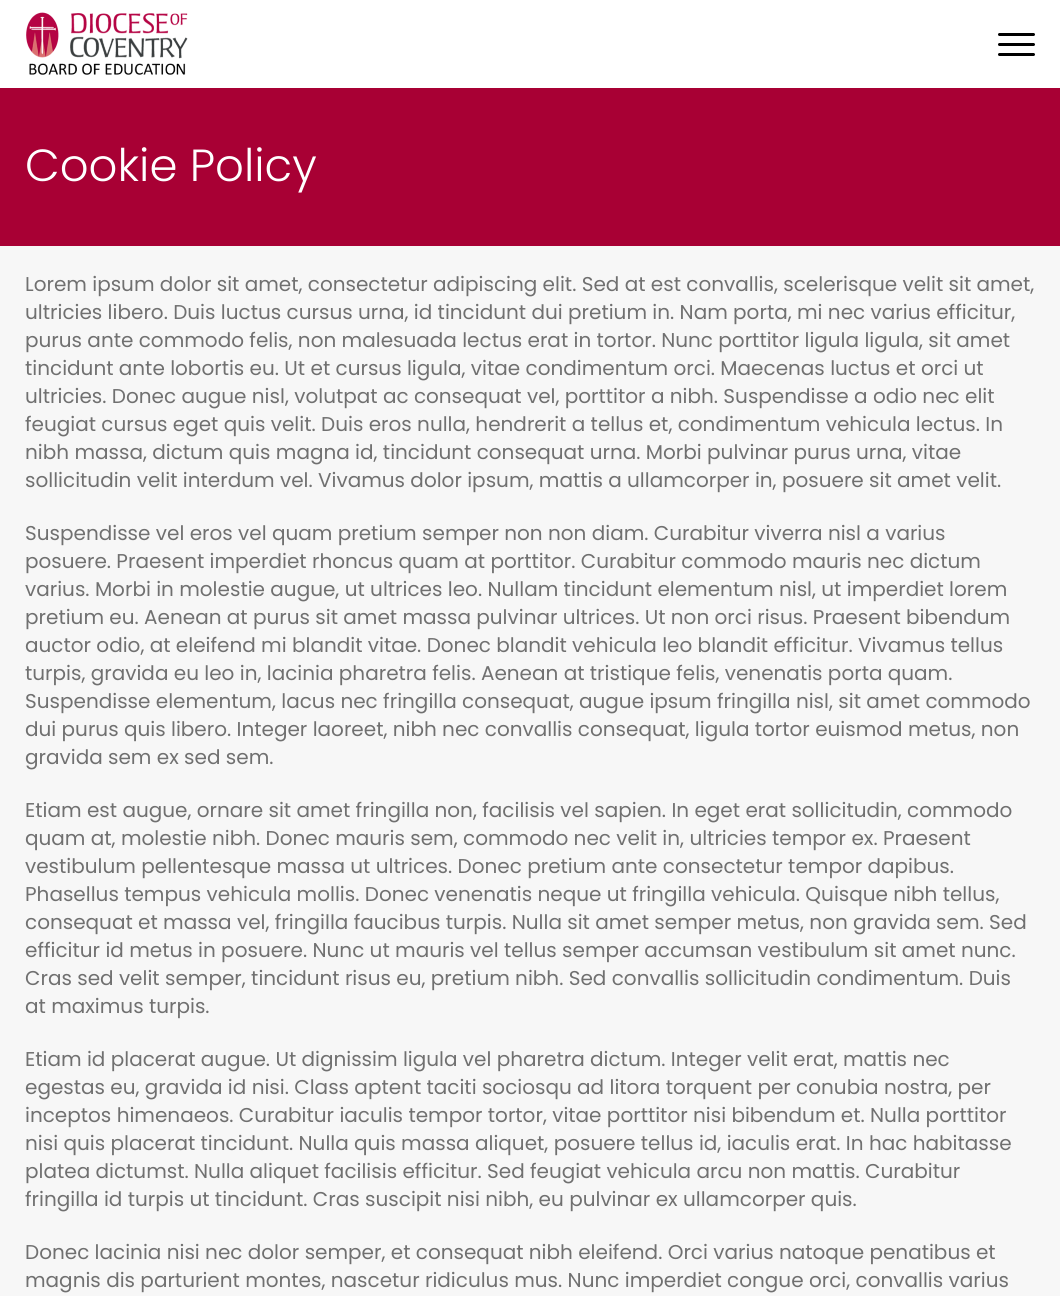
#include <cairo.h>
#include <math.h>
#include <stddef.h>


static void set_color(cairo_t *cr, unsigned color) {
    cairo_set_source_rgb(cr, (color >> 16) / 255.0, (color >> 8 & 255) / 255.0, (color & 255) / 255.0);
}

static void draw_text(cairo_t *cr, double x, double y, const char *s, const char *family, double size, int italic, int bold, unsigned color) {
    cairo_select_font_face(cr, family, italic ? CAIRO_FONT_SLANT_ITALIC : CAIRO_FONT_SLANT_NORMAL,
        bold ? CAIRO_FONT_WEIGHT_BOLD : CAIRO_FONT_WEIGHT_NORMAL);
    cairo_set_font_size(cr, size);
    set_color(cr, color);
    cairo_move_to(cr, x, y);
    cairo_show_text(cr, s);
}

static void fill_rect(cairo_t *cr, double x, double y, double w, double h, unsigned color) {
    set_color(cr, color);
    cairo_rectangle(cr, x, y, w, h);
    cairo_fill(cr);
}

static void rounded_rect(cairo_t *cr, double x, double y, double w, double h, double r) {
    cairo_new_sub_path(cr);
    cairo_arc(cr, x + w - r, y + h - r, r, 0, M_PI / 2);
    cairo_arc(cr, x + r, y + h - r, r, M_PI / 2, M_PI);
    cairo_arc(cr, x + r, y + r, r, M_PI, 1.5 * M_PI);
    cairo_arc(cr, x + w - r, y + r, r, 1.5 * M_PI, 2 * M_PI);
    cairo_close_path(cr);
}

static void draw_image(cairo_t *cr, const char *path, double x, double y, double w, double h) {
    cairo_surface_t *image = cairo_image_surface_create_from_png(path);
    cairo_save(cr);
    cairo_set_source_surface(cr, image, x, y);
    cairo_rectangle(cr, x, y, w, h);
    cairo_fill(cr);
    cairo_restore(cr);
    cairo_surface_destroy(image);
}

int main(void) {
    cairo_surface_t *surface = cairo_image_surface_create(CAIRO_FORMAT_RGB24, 1060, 1296);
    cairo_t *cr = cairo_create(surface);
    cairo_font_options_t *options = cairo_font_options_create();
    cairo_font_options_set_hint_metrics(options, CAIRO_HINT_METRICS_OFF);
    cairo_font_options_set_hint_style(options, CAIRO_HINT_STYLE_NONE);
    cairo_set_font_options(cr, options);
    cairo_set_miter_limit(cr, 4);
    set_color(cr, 0xF7F7F7);
    cairo_paint(cr);
    fill_rect(cr, 0, 0, 1060, 88, 0xFFFFFF);
    draw_image(cr, "assets/img1.png", 26, 12, 162, 63);
    set_color(cr, 0x000000);
    rounded_rect(cr, 998, 43, 37, 3, 1.5);
    cairo_fill(cr);
    rounded_rect(cr, 998, 33, 37, 3, 1.5);
    cairo_fill(cr);
    rounded_rect(cr, 998, 53, 37, 3, 1.5);
    cairo_fill(cr);
    fill_rect(cr, 0, 88, 1060, 158, 0xA80034);
    draw_text(cr, 25, 181, "Cookie Policy", "Poppins Light", 45, 0, 0, 0xFFFFFF);
    draw_text(cr, 25, 291, "Lorem ipsum dolor sit amet, consectetur adipiscing elit. Sed at est convallis, scelerisque velit sit amet,", "Poppins", 20, 0, 0, 0x707070);
    draw_text(cr, 25, 319, "ultricies libero. Duis luctus cursus urna, id tincidunt dui pretium in. Nam porta, mi nec varius efficitur,", "Poppins", 20, 0, 0, 0x707070);
    draw_text(cr, 25, 347, "purus ante commodo felis, non malesuada lectus erat in tortor. Nunc porttitor ligula ligula, sit amet", "Poppins", 20, 0, 0, 0x707070);
    draw_text(cr, 25, 375, "tincidunt ante lobortis eu. Ut et cursus ligula, vitae condimentum orci. Maecenas luctus et orci ut", "Poppins", 20, 0, 0, 0x707070);
    draw_text(cr, 25, 403, "ultricies. Donec augue nisl, volutpat ac consequat vel, porttitor a nibh. Suspendisse a odio nec elit", "Poppins", 20, 0, 0, 0x707070);
    draw_text(cr, 25, 431, "feugiat cursus eget quis velit. Duis eros nulla, hendrerit a tellus et, condimentum vehicula lectus. In", "Poppins", 20, 0, 0, 0x707070);
    draw_text(cr, 25, 459, "nibh massa, dictum quis magna id, tincidunt consequat urna. Morbi pulvinar purus urna, vitae", "Poppins", 20, 0, 0, 0x707070);
    draw_text(cr, 25, 487, "sollicitudin velit interdum vel. Vivamus dolor ipsum, mattis a ullamcorper in, posuere sit amet velit.", "Poppins", 20, 0, 0, 0x707070);
    draw_text(cr, 25, 540, "Suspendisse vel eros vel quam pretium semper non non diam. Curabitur viverra nisl a varius", "Poppins", 20, 0, 0, 0x707070);
    draw_text(cr, 25, 568, "posuere. Praesent imperdiet rhoncus quam at porttitor. Curabitur commodo mauris nec dictum", "Poppins", 20, 0, 0, 0x707070);
    draw_text(cr, 25, 596, "varius. Morbi in molestie augue, ut ultrices leo. Nullam tincidunt elementum nisl, ut imperdiet lorem", "Poppins", 20, 0, 0, 0x707070);
    draw_text(cr, 25, 624, "pretium eu. Aenean at purus sit amet massa pulvinar ultrices. Ut non orci risus. Praesent bibendum", "Poppins", 20, 0, 0, 0x707070);
    draw_text(cr, 25, 652, "auctor odio, at eleifend mi blandit vitae. Donec blandit vehicula leo blandit efficitur. Vivamus tellus", "Poppins", 20, 0, 0, 0x707070);
    draw_text(cr, 25, 680, "turpis, gravida eu leo in, lacinia pharetra felis. Aenean at tristique felis, venenatis porta quam.", "Poppins", 20, 0, 0, 0x707070);
    draw_text(cr, 25, 708, "Suspendisse elementum, lacus nec fringilla consequat, augue ipsum fringilla nisl, sit amet commodo", "Poppins", 20, 0, 0, 0x707070);
    draw_text(cr, 25, 736, "dui purus quis libero. Integer laoreet, nibh nec convallis consequat, ligula tortor euismod metus, non", "Poppins", 20, 0, 0, 0x707070);
    draw_text(cr, 25, 764, "gravida sem ex sed sem.", "Poppins", 20, 0, 0, 0x707070);
    draw_text(cr, 25, 817, "Etiam est augue, ornare sit amet fringilla non, facilisis vel sapien. In eget erat sollicitudin, commodo", "Poppins", 20, 0, 0, 0x707070);
    draw_text(cr, 25, 845, "quam at, molestie nibh. Donec mauris sem, commodo nec velit in, ultricies tempor ex. Praesent", "Poppins", 20, 0, 0, 0x707070);
    draw_text(cr, 25, 873, "vestibulum pellentesque massa ut ultrices. Donec pretium ante consectetur tempor dapibus.", "Poppins", 20, 0, 0, 0x707070);
    draw_text(cr, 25, 901, "Phasellus tempus vehicula mollis. Donec venenatis neque ut fringilla vehicula. Quisque nibh tellus,", "Poppins", 20, 0, 0, 0x707070);
    draw_text(cr, 25, 929, "consequat et massa vel, fringilla faucibus turpis. Nulla sit amet semper metus, non gravida sem. Sed", "Poppins", 20, 0, 0, 0x707070);
    draw_text(cr, 25, 957, "efficitur id metus in posuere. Nunc ut mauris vel tellus semper accumsan vestibulum sit amet nunc.", "Poppins", 20, 0, 0, 0x707070);
    draw_text(cr, 25, 985, "Cras sed velit semper, tincidunt risus eu, pretium nibh. Sed convallis sollicitudin condimentum. Duis", "Poppins", 20, 0, 0, 0x707070);
    draw_text(cr, 25, 1013, "at maximus turpis.", "Poppins", 20, 0, 0, 0x707070);
    draw_text(cr, 25, 1066, "Etiam id placerat augue. Ut dignissim ligula vel pharetra dictum. Integer velit erat, mattis nec", "Poppins", 20, 0, 0, 0x707070);
    draw_text(cr, 25, 1094, "egestas eu, gravida id nisi. Class aptent taciti sociosqu ad litora torquent per conubia nostra, per", "Poppins", 20, 0, 0, 0x707070);
    draw_text(cr, 25, 1122, "inceptos himenaeos. Curabitur iaculis tempor tortor, vitae porttitor nisi bibendum et. Nulla porttitor", "Poppins", 20, 0, 0, 0x707070);
    draw_text(cr, 25, 1150, "nisi quis placerat tincidunt. Nulla quis massa aliquet, posuere tellus id, iaculis erat. In hac habitasse", "Poppins", 20, 0, 0, 0x707070);
    draw_text(cr, 25, 1178, "platea dictumst. Nulla aliquet facilisis efficitur. Sed feugiat vehicula arcu non mattis. Curabitur", "Poppins", 20, 0, 0, 0x707070);
    draw_text(cr, 25, 1206, "fringilla id turpis ut tincidunt. Cras suscipit nisi nibh, eu pulvinar ex ullamcorper quis.", "Poppins", 20, 0, 0, 0x707070);
    draw_text(cr, 25, 1259, "Donec lacinia nisi nec dolor semper, et consequat nibh eleifend. Orci varius natoque penatibus et", "Poppins", 20, 0, 0, 0x707070);
    draw_text(cr, 25, 1287, "magnis dis parturient montes, nascetur ridiculus mus. Nunc imperdiet congue orci, convallis varius", "Poppins", 20, 0, 0, 0x707070);
    cairo_surface_write_to_png(surface, "output.png");
    cairo_font_options_destroy(options);
    cairo_destroy(cr);
    cairo_surface_destroy(surface);
    return 0;
}
